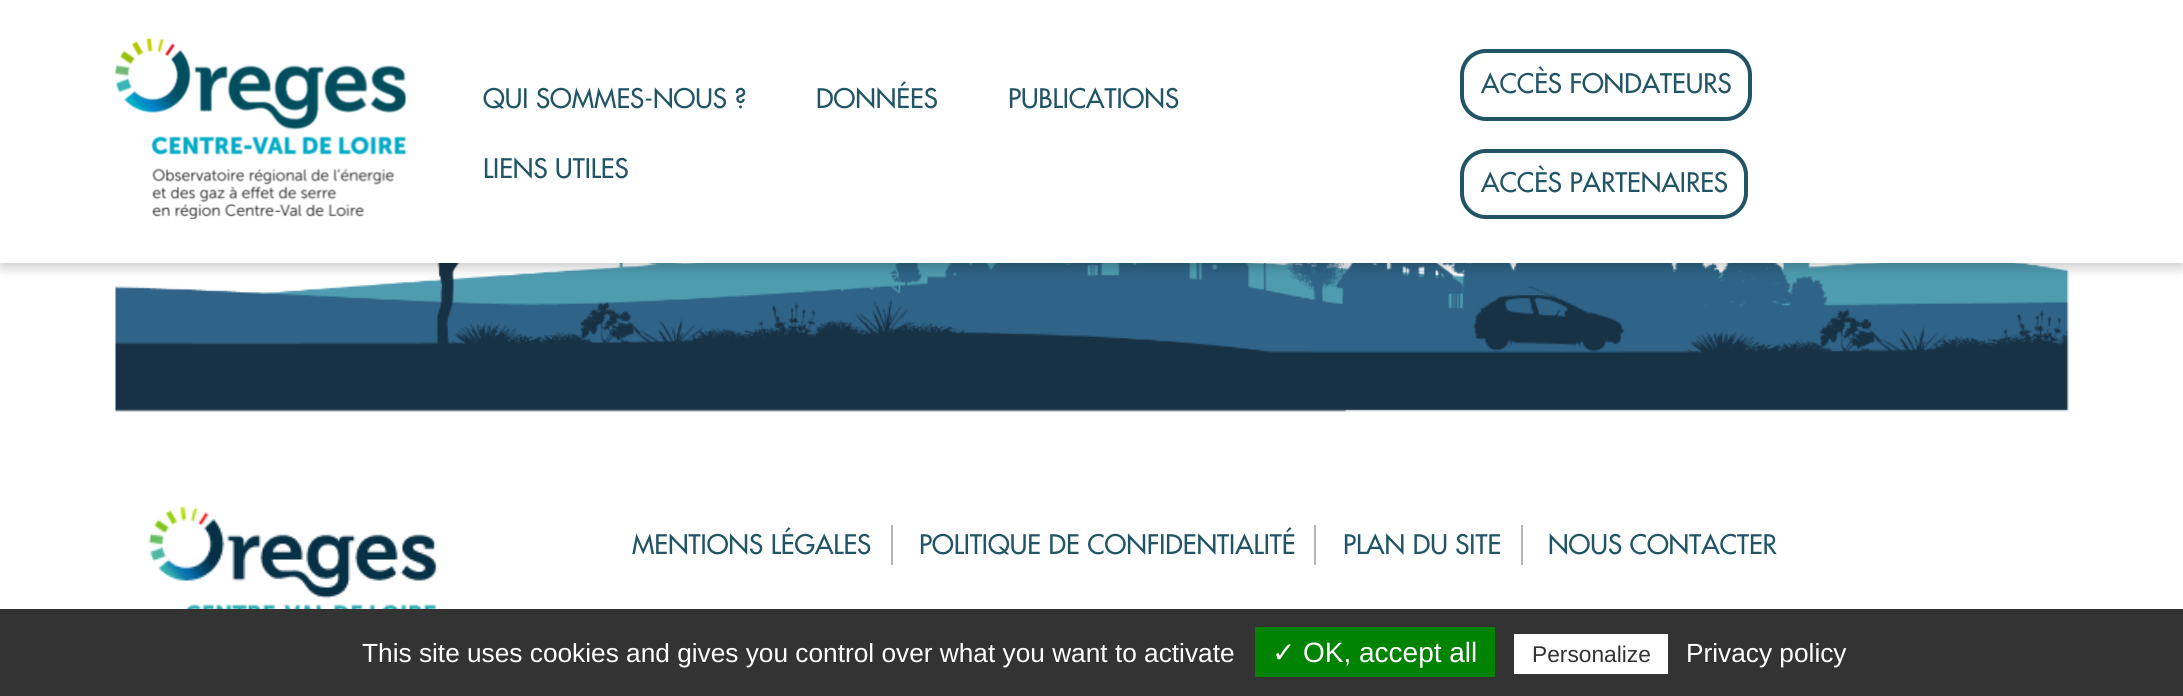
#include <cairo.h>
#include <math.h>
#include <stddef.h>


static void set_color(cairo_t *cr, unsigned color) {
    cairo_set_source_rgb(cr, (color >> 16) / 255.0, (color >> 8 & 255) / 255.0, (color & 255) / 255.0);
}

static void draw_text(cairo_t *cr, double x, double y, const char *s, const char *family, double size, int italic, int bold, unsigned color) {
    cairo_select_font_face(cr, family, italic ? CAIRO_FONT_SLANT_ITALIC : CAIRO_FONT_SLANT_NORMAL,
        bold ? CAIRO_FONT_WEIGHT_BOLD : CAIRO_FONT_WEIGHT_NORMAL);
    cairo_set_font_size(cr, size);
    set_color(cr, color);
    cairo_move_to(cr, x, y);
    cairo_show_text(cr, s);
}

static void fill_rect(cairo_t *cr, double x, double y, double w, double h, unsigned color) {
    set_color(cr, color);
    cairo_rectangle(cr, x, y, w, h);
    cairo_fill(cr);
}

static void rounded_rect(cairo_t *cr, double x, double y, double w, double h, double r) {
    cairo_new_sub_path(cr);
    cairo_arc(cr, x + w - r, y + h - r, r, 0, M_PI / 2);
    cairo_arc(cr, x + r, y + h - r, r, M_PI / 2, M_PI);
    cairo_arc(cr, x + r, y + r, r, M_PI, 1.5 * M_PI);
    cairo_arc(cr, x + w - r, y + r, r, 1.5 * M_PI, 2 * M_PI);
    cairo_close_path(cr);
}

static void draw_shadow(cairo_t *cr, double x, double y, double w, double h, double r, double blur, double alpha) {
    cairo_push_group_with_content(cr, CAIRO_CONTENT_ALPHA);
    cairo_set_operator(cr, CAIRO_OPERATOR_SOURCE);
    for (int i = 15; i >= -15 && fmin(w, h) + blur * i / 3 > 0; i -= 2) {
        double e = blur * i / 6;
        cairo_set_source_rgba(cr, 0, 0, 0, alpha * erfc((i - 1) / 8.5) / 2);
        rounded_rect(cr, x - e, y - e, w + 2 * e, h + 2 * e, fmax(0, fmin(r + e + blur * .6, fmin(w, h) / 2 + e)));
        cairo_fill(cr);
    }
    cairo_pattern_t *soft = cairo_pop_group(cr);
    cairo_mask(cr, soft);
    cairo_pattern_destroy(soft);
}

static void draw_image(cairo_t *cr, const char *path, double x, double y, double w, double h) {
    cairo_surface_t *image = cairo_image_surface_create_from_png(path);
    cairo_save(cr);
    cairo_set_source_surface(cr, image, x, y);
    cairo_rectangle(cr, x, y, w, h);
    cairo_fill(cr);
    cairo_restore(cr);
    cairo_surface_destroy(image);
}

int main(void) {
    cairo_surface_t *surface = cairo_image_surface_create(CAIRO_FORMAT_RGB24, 2183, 696);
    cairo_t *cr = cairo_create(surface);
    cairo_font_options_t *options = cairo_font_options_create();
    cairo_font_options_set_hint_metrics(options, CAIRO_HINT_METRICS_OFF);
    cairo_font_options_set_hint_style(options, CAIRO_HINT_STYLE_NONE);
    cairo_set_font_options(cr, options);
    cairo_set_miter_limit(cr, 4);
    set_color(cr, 0xFFFFFF);
    cairo_paint(cr);
    draw_image(cr, "assets/img2.png", 115, 263, 1954, 149);
    set_color(cr, 0x000000);
    draw_shadow(cr, 2, 7, 2180, 259, 0, 7, 0.25);
    fill_rect(cr, 0, 0, 2183, 263, 0xFFFFFF);
    draw_image(cr, "assets/img1.png", 115, 38, 292, 181);
    draw_text(cr, 483, 108, "QUI SOMMES-NOUS ?", "Futura Medium", 26.25, 0, 0, 0x215465);
    draw_text(cr, 816, 108, "DONNÉES", "Futura Medium", 26.25, 0, 0, 0x215465);
    draw_text(cr, 1008, 108, "PUBLICATIONS", "Futura Medium", 26.25, 0, 0, 0x215465);
    draw_text(cr, 483, 178, "LIENS UTILES", "Futura Medium", 26.25, 0, 0, 0x215465);
    rounded_rect(cr, 1462, 51, 288, 68, 24);
    cairo_set_line_width(cr, 4);
    cairo_stroke(cr);
    draw_text(cr, 1481, 93, "ACCÈS FONDATEURS", "Futura Medium", 26.25, 0, 0, 0x215465);
    rounded_rect(cr, 1462, 151, 284, 66, 24);
    cairo_stroke(cr);
    draw_text(cr, 1481, 192, "ACCÈS PARTENAIRES", "Futura Medium", 26.25, 0, 0, 0x215465);
    draw_image(cr, "assets/img3.png", 148, 506, 289, 103);
    fill_rect(cr, 891, 525, 2, 40, 0xB5B5B5);
    draw_text(cr, 632, 554, "MENTIONS LÉGALES", "Futura Medium", 26.25, 0, 0, 0x215465);
    fill_rect(cr, 1314, 525, 2, 40, 0xB5B5B5);
    draw_text(cr, 919, 554, "POLITIQUE DE CONFIDENTIALITÉ", "Futura Medium", 26.25, 0, 0, 0x215465);
    fill_rect(cr, 1521, 525, 2, 40, 0xB5B5B5);
    draw_text(cr, 1343, 554, "PLAN DU SITE", "Futura Medium", 26.25, 0, 0, 0x215465);
    draw_text(cr, 1548, 554, "NOUS CONTACTER", "Futura Medium", 26.25, 0, 0, 0x215465);
    fill_rect(cr, 0, 609, 2183, 87, 0x333333);
    draw_text(cr, 362, 662, "This site uses cookies and gives you control over what you want to activate", "Liberation Sans", 26.25, 0, 0, 0xFFFFFF);
    fill_rect(cr, 1255, 627, 240, 50, 0x008300);
    draw_text(cr, 1272, 662, "✓", "DejaVu Sans", 28, 0, 0, 0xFFFFFF);
    draw_text(cr, 1303, 662, "OK, accept all", "Liberation Sans", 28, 0, 0, 0xFFFFFF);
    fill_rect(cr, 1514, 634, 154, 40, 0xFFFFFF);
    draw_text(cr, 1532, 662, "Personalize", "Liberation Sans", 22.75, 0, 0, 0x333333);
    draw_text(cr, 1686, 662, "Privacy policy", "Liberation Sans", 26.25, 0, 0, 0xFFFFFF);
    cairo_surface_write_to_png(surface, "output.png");
    cairo_font_options_destroy(options);
    cairo_destroy(cr);
    cairo_surface_destroy(surface);
    return 0;
}
